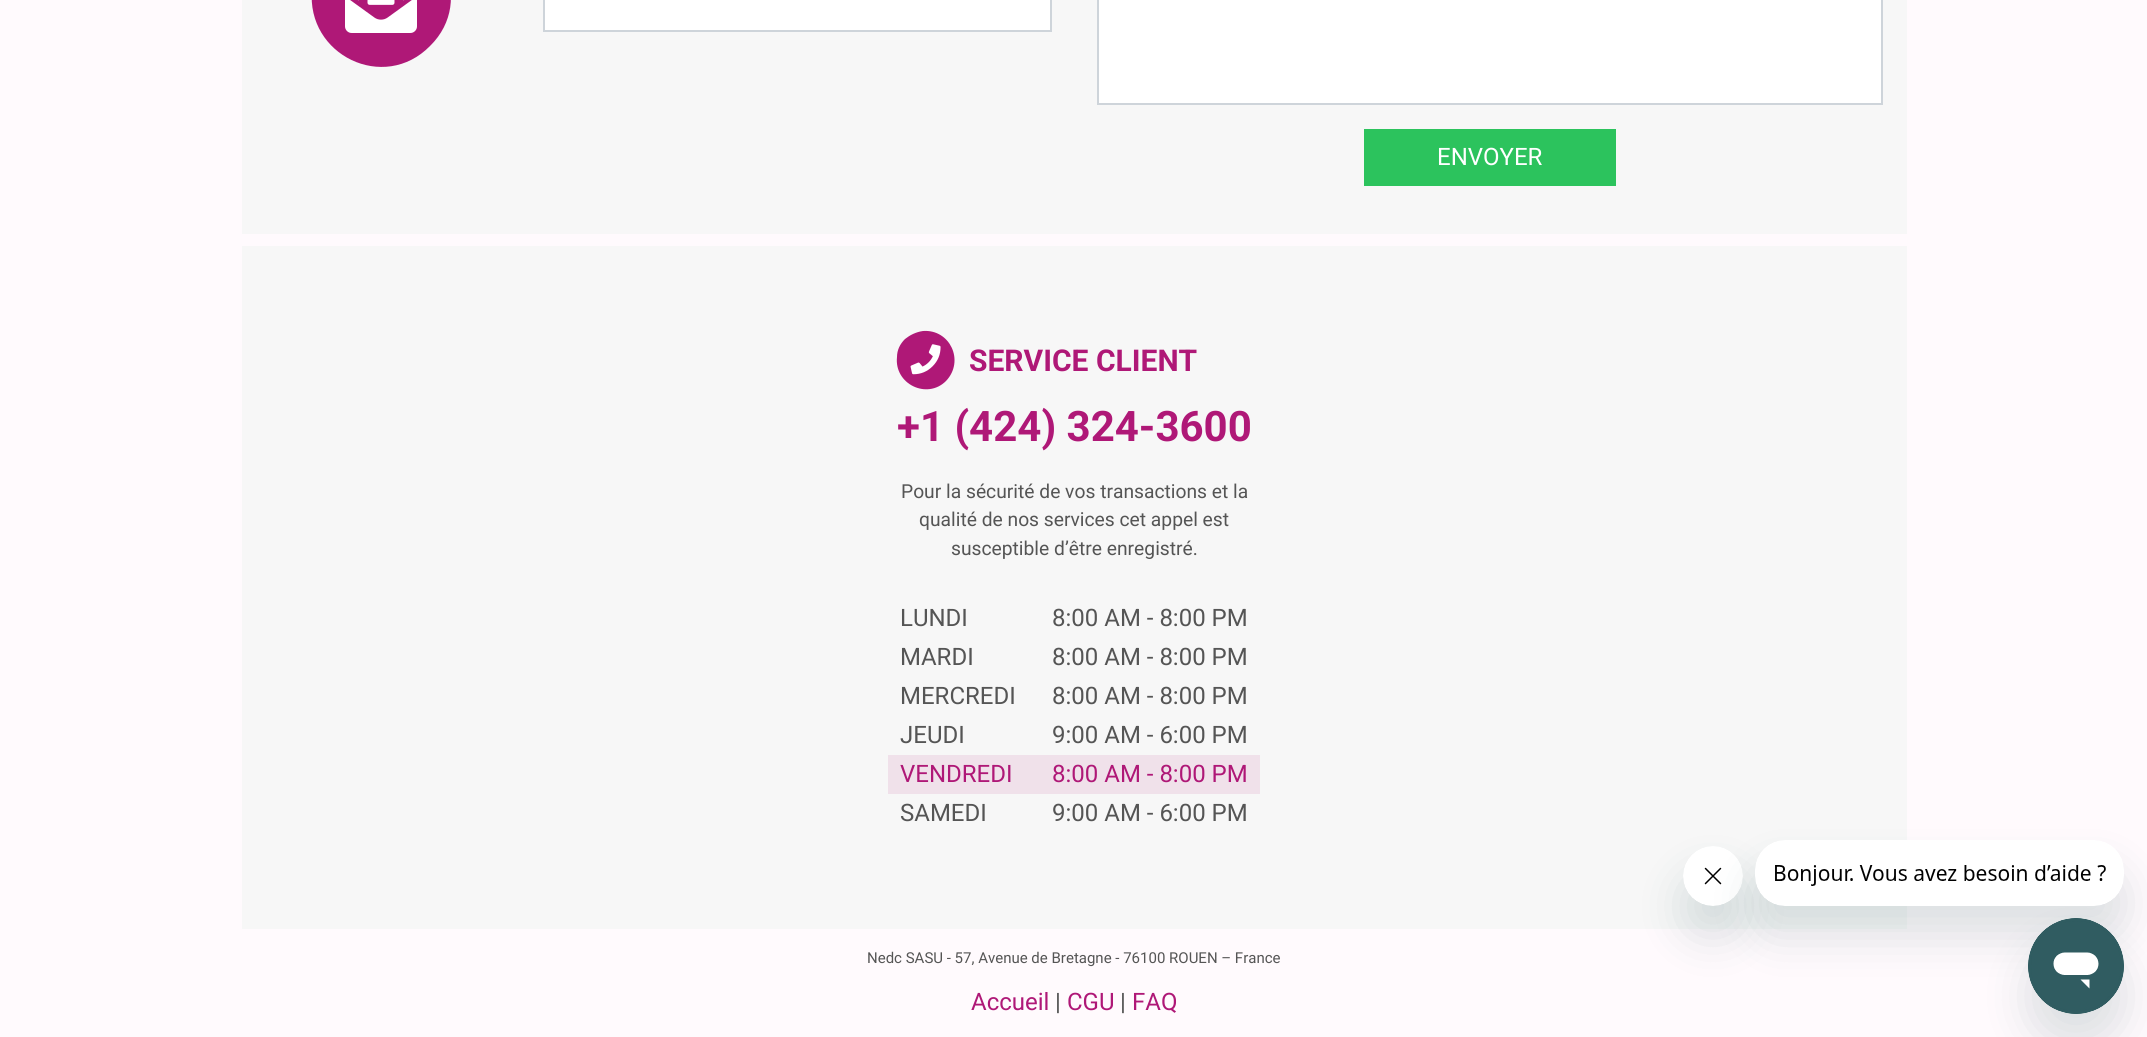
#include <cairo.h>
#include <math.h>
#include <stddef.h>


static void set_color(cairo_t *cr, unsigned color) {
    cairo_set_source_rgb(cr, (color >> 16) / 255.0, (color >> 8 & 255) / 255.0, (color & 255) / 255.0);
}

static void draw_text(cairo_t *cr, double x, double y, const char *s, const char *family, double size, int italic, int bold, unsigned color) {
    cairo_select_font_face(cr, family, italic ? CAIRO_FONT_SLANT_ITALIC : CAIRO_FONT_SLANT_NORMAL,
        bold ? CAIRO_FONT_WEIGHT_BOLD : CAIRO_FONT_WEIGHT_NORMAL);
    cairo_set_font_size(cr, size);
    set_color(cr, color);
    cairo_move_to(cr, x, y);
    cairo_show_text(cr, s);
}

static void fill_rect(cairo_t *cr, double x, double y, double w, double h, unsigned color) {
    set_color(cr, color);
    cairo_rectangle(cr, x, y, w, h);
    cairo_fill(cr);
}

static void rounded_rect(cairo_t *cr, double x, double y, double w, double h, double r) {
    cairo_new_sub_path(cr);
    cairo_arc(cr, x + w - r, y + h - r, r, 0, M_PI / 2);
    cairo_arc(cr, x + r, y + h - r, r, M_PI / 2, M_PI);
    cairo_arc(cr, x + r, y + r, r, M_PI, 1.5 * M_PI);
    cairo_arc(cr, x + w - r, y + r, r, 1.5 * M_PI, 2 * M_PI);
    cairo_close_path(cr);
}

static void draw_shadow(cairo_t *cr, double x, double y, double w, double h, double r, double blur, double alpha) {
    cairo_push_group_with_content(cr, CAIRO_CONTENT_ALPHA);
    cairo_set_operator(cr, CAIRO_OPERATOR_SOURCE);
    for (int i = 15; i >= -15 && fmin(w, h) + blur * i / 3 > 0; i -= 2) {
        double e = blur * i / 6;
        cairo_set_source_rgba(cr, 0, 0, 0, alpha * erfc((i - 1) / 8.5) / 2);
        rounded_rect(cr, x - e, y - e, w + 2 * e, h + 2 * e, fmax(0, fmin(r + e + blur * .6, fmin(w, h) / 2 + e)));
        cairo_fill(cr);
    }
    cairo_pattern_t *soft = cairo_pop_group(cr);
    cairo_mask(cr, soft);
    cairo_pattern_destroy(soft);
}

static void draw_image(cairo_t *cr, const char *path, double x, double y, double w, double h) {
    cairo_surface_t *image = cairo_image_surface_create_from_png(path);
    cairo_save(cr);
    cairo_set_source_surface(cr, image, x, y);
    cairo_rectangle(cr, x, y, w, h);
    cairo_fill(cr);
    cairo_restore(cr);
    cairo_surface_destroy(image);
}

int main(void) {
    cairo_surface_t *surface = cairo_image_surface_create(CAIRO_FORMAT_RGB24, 2147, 1037);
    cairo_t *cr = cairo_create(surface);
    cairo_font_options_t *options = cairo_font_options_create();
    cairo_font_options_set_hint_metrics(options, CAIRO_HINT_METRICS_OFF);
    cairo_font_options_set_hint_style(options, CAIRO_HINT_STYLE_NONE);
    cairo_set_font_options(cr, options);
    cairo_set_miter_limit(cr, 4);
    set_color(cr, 0xFFFAFD);
    cairo_paint(cr);
    fill_rect(cr, 242, 0, 1665, 234, 0xF7F7F7);
    set_color(cr, 0xAF1877);
    cairo_new_path(cr);
    cairo_move_to(cr, 332, -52);
    cairo_curve_to(cr, 343, -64, 358, -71, 374, -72);
    cairo_curve_to(cr, 439, -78, 477, 0, 430, 46);
    cairo_curve_to(cr, 384, 93, 306, 55, 312, -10);
    cairo_curve_to(cr, 313, -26, 320, -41, 332, -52);
    cairo_close_path(cr);
    cairo_fill(cr);
    draw_image(cr, "assets/img1.png", 345, 0, 72, 33);
    set_color(cr, 0xFFFFFF);
    cairo_rectangle(cr, 544, -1, 507, 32);
    cairo_fill_preserve(cr);
    set_color(cr, 0xCED4DA);
    cairo_stroke(cr);
    set_color(cr, 0xFFFFFF);
    cairo_rectangle(cr, 1098, -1, 784, 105);
    cairo_fill_preserve(cr);
    set_color(cr, 0xCED4DA);
    cairo_stroke(cr);
    fill_rect(cr, 1364, 129, 252, 57, 0x2CC35D);
    draw_text(cr, 1437, 165, "ENVOYER", "Roboto", 24, 0, 0, 0xFFFFFF);
    fill_rect(cr, 242, 246, 1665, 683, 0xF7F7F7);
    set_color(cr, 0xAF1877);
    cairo_new_path(cr);
    cairo_move_to(cr, 905, 339);
    cairo_curve_to(cr, 910, 335, 916, 332, 923, 331);
    cairo_curve_to(cr, 950, 329, 965, 361, 946, 381);
    cairo_curve_to(cr, 927, 400, 894, 384, 897, 357);
    cairo_curve_to(cr, 897, 350, 900, 344, 905, 339);
    cairo_close_path(cr);
    cairo_fill(cr);
    draw_image(cr, "assets/img2.png", 910, 344, 31, 31);
    draw_text(cr, 969, 371, "SERVICE CLIENT", "Roboto", 30, 0, 1, 0xAF1877);
    draw_text(cr, 897, 441, "+1 (424) 324-3600", "Roboto", 42, 0, 1, 0xAF1877);
    draw_text(cr, 901, 498, "Pour la sécurité de vos transactions et la", "Roboto", 19.25, 0, 0, 0x555555);
    draw_text(cr, 919, 526, "qualité de nos services cet appel est", "Roboto", 19.25, 0, 0, 0x555555);
    draw_text(cr, 951, 555, "susceptible d’être enregistré.", "Roboto", 19.25, 0, 0, 0x555555);
    draw_text(cr, 900, 626, "LUNDI", "Roboto", 24, 0, 0, 0x555555);
    draw_text(cr, 1052, 626, "8:00 AM - 8:00 PM", "Roboto", 24, 0, 0, 0x555555);
    draw_text(cr, 900, 665, "MARDI", "Roboto", 24, 0, 0, 0x555555);
    draw_text(cr, 1052, 665, "8:00 AM - 8:00 PM", "Roboto", 24, 0, 0, 0x555555);
    draw_text(cr, 900, 704, "MERCREDI", "Roboto", 24, 0, 0, 0x555555);
    draw_text(cr, 1052, 704, "8:00 AM - 8:00 PM", "Roboto", 24, 0, 0, 0x555555);
    draw_text(cr, 900, 743, "JEUDI", "Roboto", 24, 0, 0, 0x555555);
    draw_text(cr, 1052, 743, "9:00 AM - 6:00 PM", "Roboto", 24, 0, 0, 0x555555);
    fill_rect(cr, 888, 755, 372, 39, 0xF0E1EA);
    draw_text(cr, 900, 782, "VENDREDI", "Roboto", 24, 0, 0, 0xAF1877);
    draw_text(cr, 1052, 782, "8:00 AM - 8:00 PM", "Roboto", 24, 0, 0, 0xAF1877);
    draw_text(cr, 900, 821, "SAMEDI", "Roboto", 24, 0, 0, 0x555555);
    draw_text(cr, 1052, 821, "9:00 AM - 6:00 PM", "Roboto", 24, 0, 0, 0x555555);
    draw_text(cr, 867, 963, "Nedc SASU - 57, Avenue de Bretagne - 76100 ROUEN – France", "Roboto", 15, 0, 0, 0x555555);
    draw_text(cr, 971, 1010, "Accueil", "Roboto", 24, 0, 0, 0xAF1877);
    draw_text(cr, 1055, 1010, "|", "Roboto", 24, 0, 0, 0x555555);
    draw_text(cr, 1067, 1010, "CGU", "Roboto", 24, 0, 0, 0xAF1877);
    draw_text(cr, 1120, 1010, "|", "Roboto", 24, 0, 0, 0x555555);
    draw_text(cr, 1132, 1010, "FAQ", "Roboto", 24, 0, 0, 0xAF1877);
    set_color(cr, 0x17494D);
    draw_shadow(cr, 1683, 876, 60, 60, 30, 22.5, 0.15);
    draw_image(cr, "assets/img4.png", 1683, 846, 60, 60);
    draw_shadow(cr, 1755, 870, 369, 66, 30, 22.5, 0.15);
    draw_image(cr, "assets/img3.png", 1755, 840, 369, 66);
    draw_shadow(cr, 2028, 948, 96, 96, 48, 22.5, 0.15);
    draw_image(cr, "assets/img5.png", 2028, 918, 96, 96);
    cairo_surface_write_to_png(surface, "output.png");
    cairo_font_options_destroy(options);
    cairo_destroy(cr);
    cairo_surface_destroy(surface);
    return 0;
}
